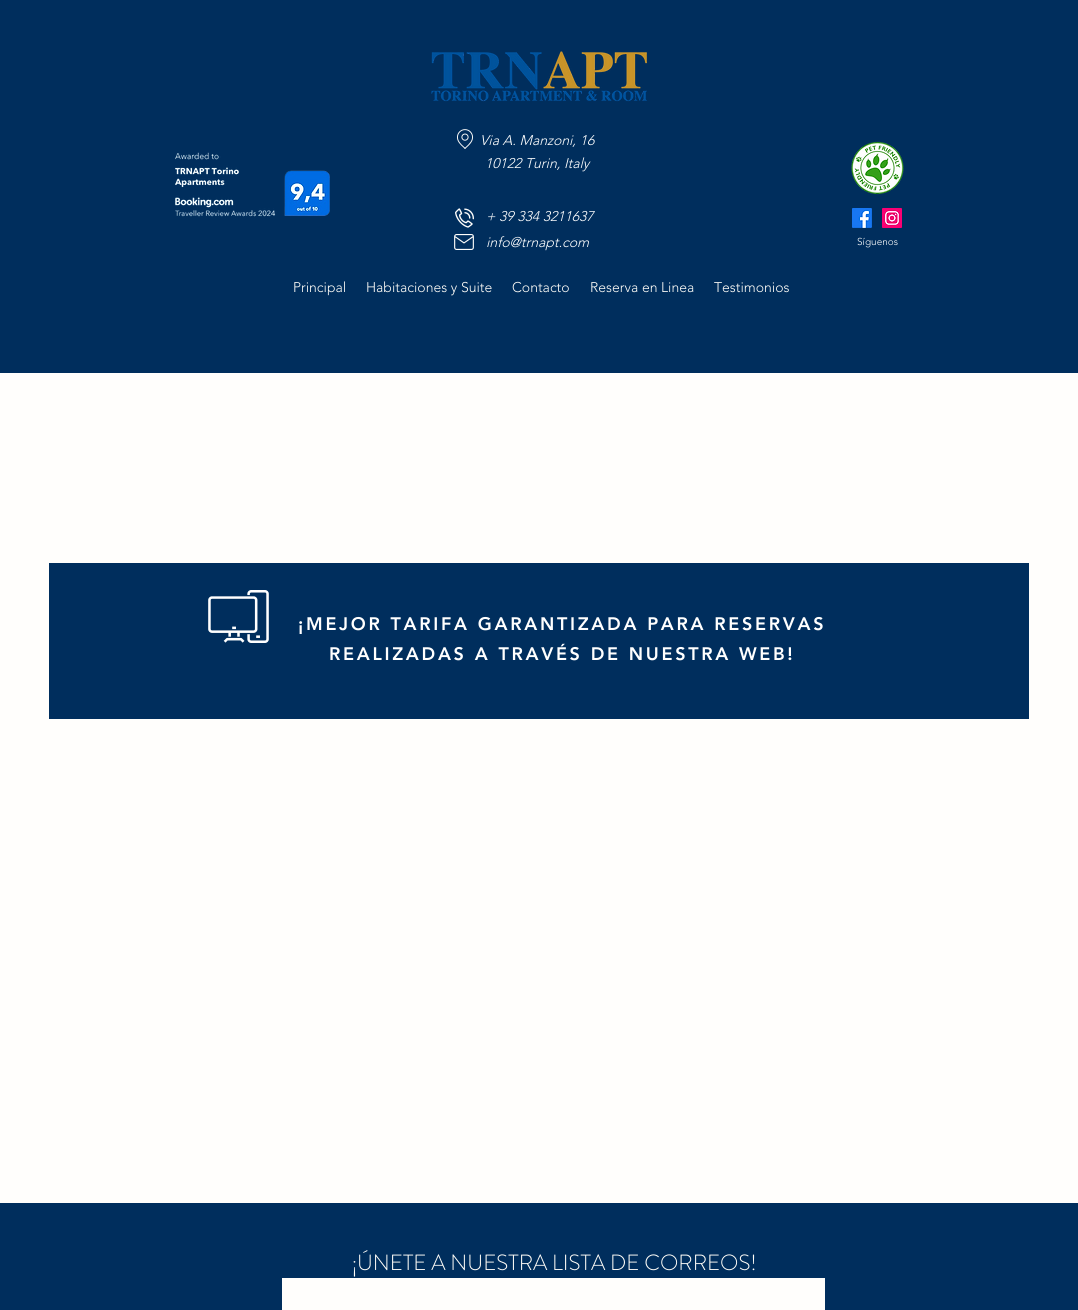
#include <cairo.h>
#include <math.h>
#include <stddef.h>


static void set_color(cairo_t *cr, unsigned color) {
    cairo_set_source_rgb(cr, (color >> 16) / 255.0, (color >> 8 & 255) / 255.0, (color & 255) / 255.0);
}

static void draw_text(cairo_t *cr, double x, double y, const char *s, const char *family, double size, int italic, int bold, unsigned color) {
    cairo_select_font_face(cr, family, italic ? CAIRO_FONT_SLANT_ITALIC : CAIRO_FONT_SLANT_NORMAL,
        bold ? CAIRO_FONT_WEIGHT_BOLD : CAIRO_FONT_WEIGHT_NORMAL);
    cairo_set_font_size(cr, size);
    set_color(cr, color);
    cairo_move_to(cr, x, y);
    cairo_show_text(cr, s);
}

static void draw_spaced(cairo_t *cr, double x, double y, const char *s, double letter, double word) {
    cairo_move_to(cr, x, y);
    while (*s) {
        char ch[5] = {0};
        int n = 0;
        do ch[n++] = *s++; while ((*s & 0xC0) == 0x80);
        cairo_show_text(cr, ch);
        cairo_rel_move_to(cr, letter + word * (*ch == ' '), 0);
    }
}

static void fill_rect(cairo_t *cr, double x, double y, double w, double h, unsigned color) {
    set_color(cr, color);
    cairo_rectangle(cr, x, y, w, h);
    cairo_fill(cr);
}

static void draw_image(cairo_t *cr, const char *path, double x, double y, double w, double h) {
    cairo_surface_t *image = cairo_image_surface_create_from_png(path);
    cairo_save(cr);
    cairo_set_source_surface(cr, image, x, y);
    cairo_rectangle(cr, x, y, w, h);
    cairo_fill(cr);
    cairo_restore(cr);
    cairo_surface_destroy(image);
}

int main(void) {
    cairo_surface_t *surface = cairo_image_surface_create(CAIRO_FORMAT_RGB24, 1078, 1310);
    cairo_t *cr = cairo_create(surface);
    cairo_font_options_t *options = cairo_font_options_create();
    cairo_font_options_set_hint_metrics(options, CAIRO_HINT_METRICS_OFF);
    cairo_font_options_set_hint_style(options, CAIRO_HINT_STYLE_NONE);
    cairo_set_font_options(cr, options);
    cairo_set_miter_limit(cr, 4);
    set_color(cr, 0xFFFEFC);
    cairo_paint(cr);
    fill_rect(cr, 0, 0, 1078, 373, 0x002E5D);
    draw_image(cr, "assets/img1.png", 431, 51, 216, 51);
    draw_image(cr, "assets/img2.png", 175, 152, 64, 36);
    draw_image(cr, "assets/img3.png", 457, 129, 16, 20);
    draw_text(cr, 480, 145, "Via A. Manzoni, 16", "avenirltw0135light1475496 Light", 14, 1, 0, 0xFFFFFF);
    draw_text(cr, 485, 168, "10122 Turin, Italy", "avenirltw0135light1475496 Light", 14, 1, 0, 0xFFFFFF);
    draw_image(cr, "assets/img4.png", 851, 141, 53, 54);
    draw_image(cr, "assets/img5.png", 175, 170, 155, 47);
    draw_image(cr, "assets/img6.png", 455, 208, 19, 20);
    draw_text(cr, 486, 221, "+ 39 334 3211637", "avenirltw0135light1475496 Light", 14, 1, 0, 0xFFFFFF);
    draw_image(cr, "assets/img7.png", 852, 208, 20, 20);
    draw_image(cr, "assets/img8.png", 882, 208, 20, 20);
    draw_image(cr, "assets/img9.png", 454, 234, 20, 16);
    draw_text(cr, 486, 247, "info@trnapt.com", "avenirltw0135light1475496 Light", 14, 1, 0, 0xFFFFFF);
    draw_text(cr, 857, 245, "Síguenos", "avenirltw0135light1475496 Light", 10, 0, 0, 0xFFFFFF);
    draw_text(cr, 293, 292, "Principal", "avenirltw0135light1475496 Light", 14, 0, 0, 0xFFFDF8);
    draw_text(cr, 366, 292, "Habitaciones y Suite", "avenirltw0135light1475496 Light", 14, 0, 0, 0xFFFDF8);
    draw_text(cr, 512, 292, "Contacto", "avenirltw0135light1475496 Light", 14, 0, 0, 0xFFFDF8);
    draw_text(cr, 590, 292, "Reserva en Linea", "avenirltw0135light1475496 Light", 14, 0, 0, 0xFFFDF8);
    draw_text(cr, 714, 292, "Testimonios", "avenirltw0135light1475496 Light", 14, 0, 0, 0xFFFDF8);
    fill_rect(cr, 49, 563, 980, 156, 0x002E5D);
    draw_image(cr, "assets/img10.png", 208, 590, 61, 53);
    cairo_select_font_face(cr, "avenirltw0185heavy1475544 Black", CAIRO_FONT_SLANT_NORMAL, CAIRO_FONT_WEIGHT_NORMAL);
    cairo_set_font_size(cr, 18);
    set_color(cr, 0xFFFFFF);
    draw_spaced(cr, 298, 630, "¡MEJOR TARIFA GARANTIZADA PARA RESERVAS", 2.7, 0);
    draw_spaced(cr, 329, 660, "REALIZADAS A TRAVÉS DE NUESTRA WEB!", 2.7, 0);
    fill_rect(cr, 0, 1203, 1078, 107, 0x002E5D);
    draw_text(cr, 352, 1270, "¡ÚNETE A NUESTRA LISTA DE CORREOS!", "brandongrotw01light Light", 22, 0, 0, 0xFFFDF8);
    fill_rect(cr, 282, 1278, 543, 32, 0xFFFEFC);
    cairo_surface_write_to_png(surface, "output.png");
    cairo_font_options_destroy(options);
    cairo_destroy(cr);
    cairo_surface_destroy(surface);
    return 0;
}
